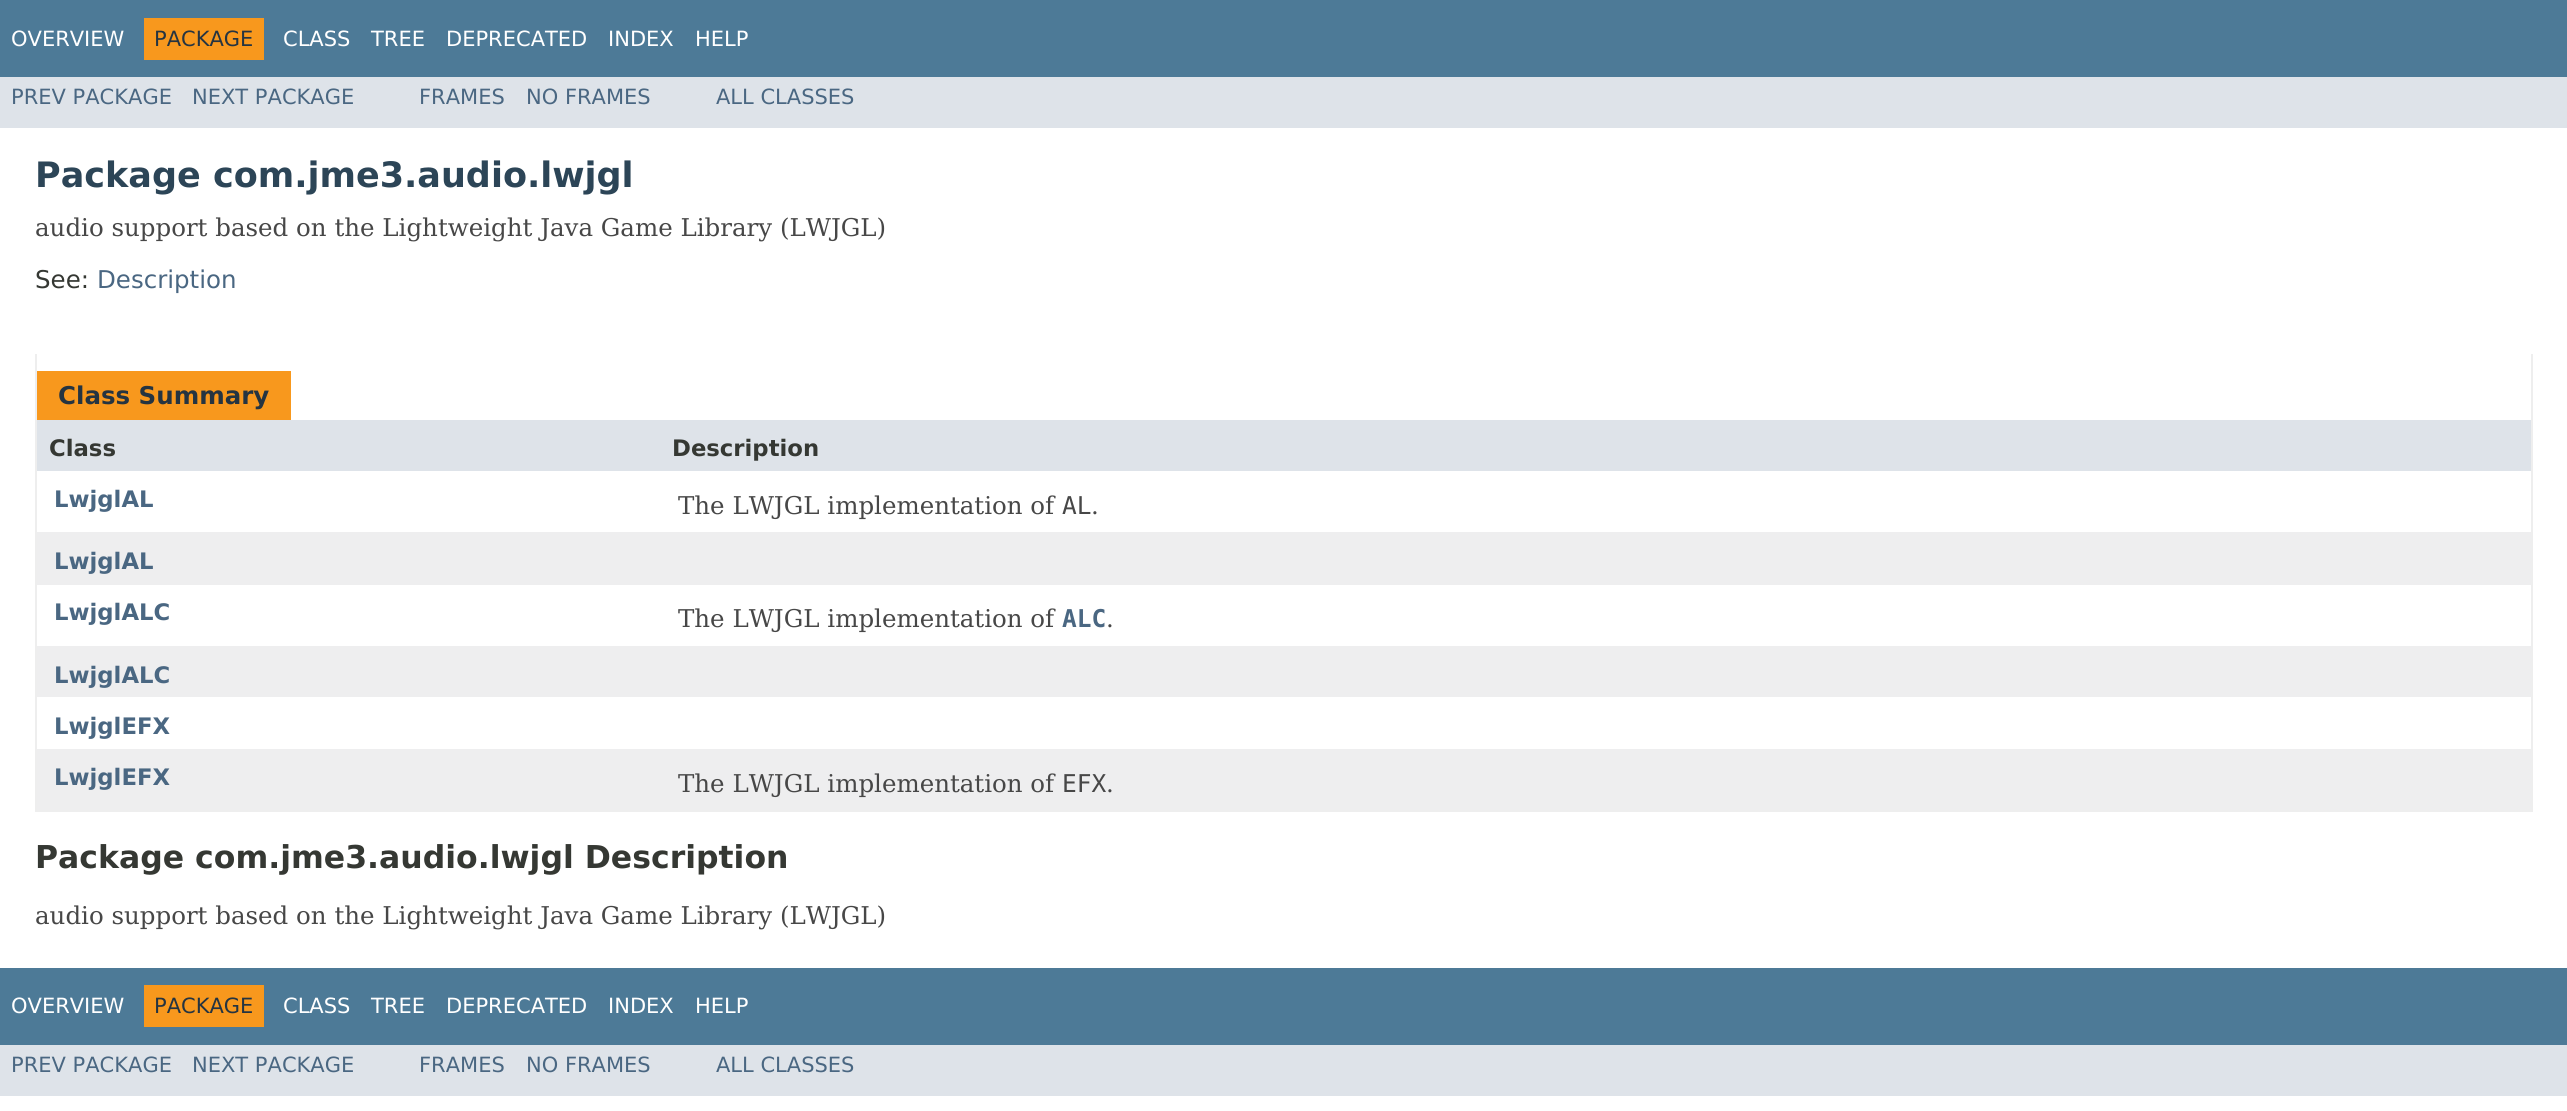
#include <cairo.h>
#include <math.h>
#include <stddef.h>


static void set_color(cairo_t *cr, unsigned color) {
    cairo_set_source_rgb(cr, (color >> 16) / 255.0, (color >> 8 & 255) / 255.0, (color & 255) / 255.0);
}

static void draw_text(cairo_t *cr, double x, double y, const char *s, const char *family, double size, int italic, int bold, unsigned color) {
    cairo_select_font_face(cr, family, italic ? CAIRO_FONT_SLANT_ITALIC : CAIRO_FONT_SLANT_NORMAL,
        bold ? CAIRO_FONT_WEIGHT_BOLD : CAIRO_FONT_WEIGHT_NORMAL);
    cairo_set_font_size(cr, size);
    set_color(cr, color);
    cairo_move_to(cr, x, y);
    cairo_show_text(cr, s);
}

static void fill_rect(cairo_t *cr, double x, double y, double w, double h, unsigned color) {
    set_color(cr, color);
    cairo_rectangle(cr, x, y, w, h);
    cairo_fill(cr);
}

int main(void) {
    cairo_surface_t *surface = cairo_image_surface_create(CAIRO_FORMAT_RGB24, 2567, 1111);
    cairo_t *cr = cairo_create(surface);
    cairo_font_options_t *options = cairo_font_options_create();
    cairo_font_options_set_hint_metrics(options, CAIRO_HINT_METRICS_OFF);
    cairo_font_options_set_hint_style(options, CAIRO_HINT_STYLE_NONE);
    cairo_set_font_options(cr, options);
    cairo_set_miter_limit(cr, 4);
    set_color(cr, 0xFFFFFF);
    cairo_paint(cr);
    fill_rect(cr, 0, 0, 2567, 77, 0x4D7A97);
    draw_text(cr, 11, 46, "OVERVIEW", "DejaVu Sans", 21, 0, 0, 0xFFFFFF);
    fill_rect(cr, 144, 18, 120, 42, 0xF8981D);
    draw_text(cr, 154, 46, "PACKAGE", "DejaVu Sans", 21, 0, 0, 0x253441);
    draw_text(cr, 283, 46, "CLASS", "DejaVu Sans", 21, 0, 0, 0xFFFFFF);
    draw_text(cr, 371, 46, "TREE", "DejaVu Sans", 21, 0, 0, 0xFFFFFF);
    draw_text(cr, 446, 46, "DEPRECATED", "DejaVu Sans", 21, 0, 0, 0xFFFFFF);
    draw_text(cr, 608, 46, "INDEX", "DejaVu Sans", 21, 0, 0, 0xFFFFFF);
    draw_text(cr, 695, 46, "HELP", "DejaVu Sans", 21, 0, 0, 0xFFFFFF);
    fill_rect(cr, 0, 77, 2567, 51, 0xDEE3E9);
    draw_text(cr, 11, 104, "PREV PACKAGE", "DejaVu Sans", 21, 0, 0, 0x4A6782);
    draw_text(cr, 192, 104, "NEXT PACKAGE", "DejaVu Sans", 21, 0, 0, 0x4A6782);
    draw_text(cr, 419, 104, "FRAMES", "DejaVu Sans", 21, 0, 0, 0x4A6782);
    draw_text(cr, 526, 104, "NO FRAMES", "DejaVu Sans", 21, 0, 0, 0x4A6782);
    draw_text(cr, 716, 104, "ALL CLASSES", "DejaVu Sans", 21, 0, 0, 0x4A6782);
    draw_text(cr, 35, 187, "Package com.jme3.audio.lwjgl", "DejaVu Sans", 35, 0, 1, 0x2C4557);
    draw_text(cr, 35, 236, "audio support based on the Lightweight Java Game Library (LWJGL)", "DejaVu Serif", 24.5, 0, 0, 0x474747);
    draw_text(cr, 35, 288, "See:", "DejaVu Sans", 24.5, 0, 0, 0x353833);
    draw_text(cr, 97, 288, "Description", "DejaVu Sans", 24.5, 0, 0, 0x4A6782);
    fill_rect(cr, 2531, 354, 2, 458, 0xEEEEEE);
    fill_rect(cr, 35, 810, 2497, 2, 0xEEEEEE);
    fill_rect(cr, 35, 354, 2, 458, 0xEEEEEE);
    fill_rect(cr, 37, 371, 254, 49, 0xF8981D);
    draw_text(cr, 58, 404, "Class Summary", "DejaVu Sans", 24.5, 0, 1, 0x253441);
    fill_rect(cr, 37, 420, 2494, 51, 0xDEE3E9);
    draw_text(cr, 49, 456, "Class", "DejaVu Sans", 22.75, 0, 1, 0x353833);
    draw_text(cr, 672, 456, "Description", "DejaVu Sans", 22.75, 0, 1, 0x353833);
    draw_text(cr, 54, 507, "LwjglAL", "DejaVu Sans", 22.75, 0, 1, 0x4A6782);
    draw_text(cr, 678, 514, "The LWJGL implementation of", "DejaVu Serif", 24.5, 0, 0, 0x474747);
    draw_text(cr, 1062, 514, "AL", "DejaVu Sans Mono", 24.5, 0, 0, 0x474747);
    draw_text(cr, 1091, 514, ".", "DejaVu Serif", 24.5, 0, 0, 0x474747);
    fill_rect(cr, 37, 532, 2494, 53, 0xEEEEEF);
    draw_text(cr, 54, 569, "LwjglAL", "DejaVu Sans", 22.75, 0, 1, 0x4A6782);
    draw_text(cr, 54, 620, "LwjglALC", "DejaVu Sans", 22.75, 0, 1, 0x4A6782);
    draw_text(cr, 678, 627, "The LWJGL implementation of", "DejaVu Serif", 24.5, 0, 0, 0x474747);
    draw_text(cr, 1062, 627, "ALC", "DejaVu Sans Mono", 24.5, 0, 1, 0x4A6782);
    draw_text(cr, 1106, 627, ".", "DejaVu Serif", 24.5, 0, 0, 0x474747);
    fill_rect(cr, 37, 646, 2494, 51, 0xEEEEEF);
    draw_text(cr, 54, 683, "LwjglALC", "DejaVu Sans", 22.75, 0, 1, 0x4A6782);
    draw_text(cr, 54, 734, "LwjglEFX", "DejaVu Sans", 22.75, 0, 1, 0x4A6782);
    fill_rect(cr, 37, 749, 2494, 61, 0xEEEEEF);
    draw_text(cr, 54, 785, "LwjglEFX", "DejaVu Sans", 22.75, 0, 1, 0x4A6782);
    draw_text(cr, 678, 792, "The LWJGL implementation of", "DejaVu Serif", 24.5, 0, 0, 0x474747);
    draw_text(cr, 1062, 792, "EFX", "DejaVu Sans Mono", 24.5, 0, 0, 0x474747);
    draw_text(cr, 1106, 792, ".", "DejaVu Serif", 24.5, 0, 0, 0x474747);
    draw_text(cr, 35, 868, "Package com.jme3.audio.lwjgl Description", "DejaVu Sans", 31.5, 0, 1, 0x353833);
    draw_text(cr, 35, 924, "audio support based on the Lightweight Java Game Library (LWJGL)", "DejaVu Serif", 24.5, 0, 0, 0x474747);
    fill_rect(cr, 0, 968, 2567, 77, 0x4D7A97);
    draw_text(cr, 11, 1013, "OVERVIEW", "DejaVu Sans", 21, 0, 0, 0xFFFFFF);
    fill_rect(cr, 144, 985, 120, 42, 0xF8981D);
    draw_text(cr, 154, 1013, "PACKAGE", "DejaVu Sans", 21, 0, 0, 0x253441);
    draw_text(cr, 283, 1013, "CLASS", "DejaVu Sans", 21, 0, 0, 0xFFFFFF);
    draw_text(cr, 371, 1013, "TREE", "DejaVu Sans", 21, 0, 0, 0xFFFFFF);
    draw_text(cr, 446, 1013, "DEPRECATED", "DejaVu Sans", 21, 0, 0, 0xFFFFFF);
    draw_text(cr, 608, 1013, "INDEX", "DejaVu Sans", 21, 0, 0, 0xFFFFFF);
    draw_text(cr, 695, 1013, "HELP", "DejaVu Sans", 21, 0, 0, 0xFFFFFF);
    fill_rect(cr, 0, 1045, 2567, 51, 0xDEE3E9);
    draw_text(cr, 11, 1072, "PREV PACKAGE", "DejaVu Sans", 21, 0, 0, 0x4A6782);
    draw_text(cr, 192, 1072, "NEXT PACKAGE", "DejaVu Sans", 21, 0, 0, 0x4A6782);
    draw_text(cr, 419, 1072, "FRAMES", "DejaVu Sans", 21, 0, 0, 0x4A6782);
    draw_text(cr, 526, 1072, "NO FRAMES", "DejaVu Sans", 21, 0, 0, 0x4A6782);
    draw_text(cr, 716, 1072, "ALL CLASSES", "DejaVu Sans", 21, 0, 0, 0x4A6782);
    cairo_surface_write_to_png(surface, "output.png");
    cairo_font_options_destroy(options);
    cairo_destroy(cr);
    cairo_surface_destroy(surface);
    return 0;
}
